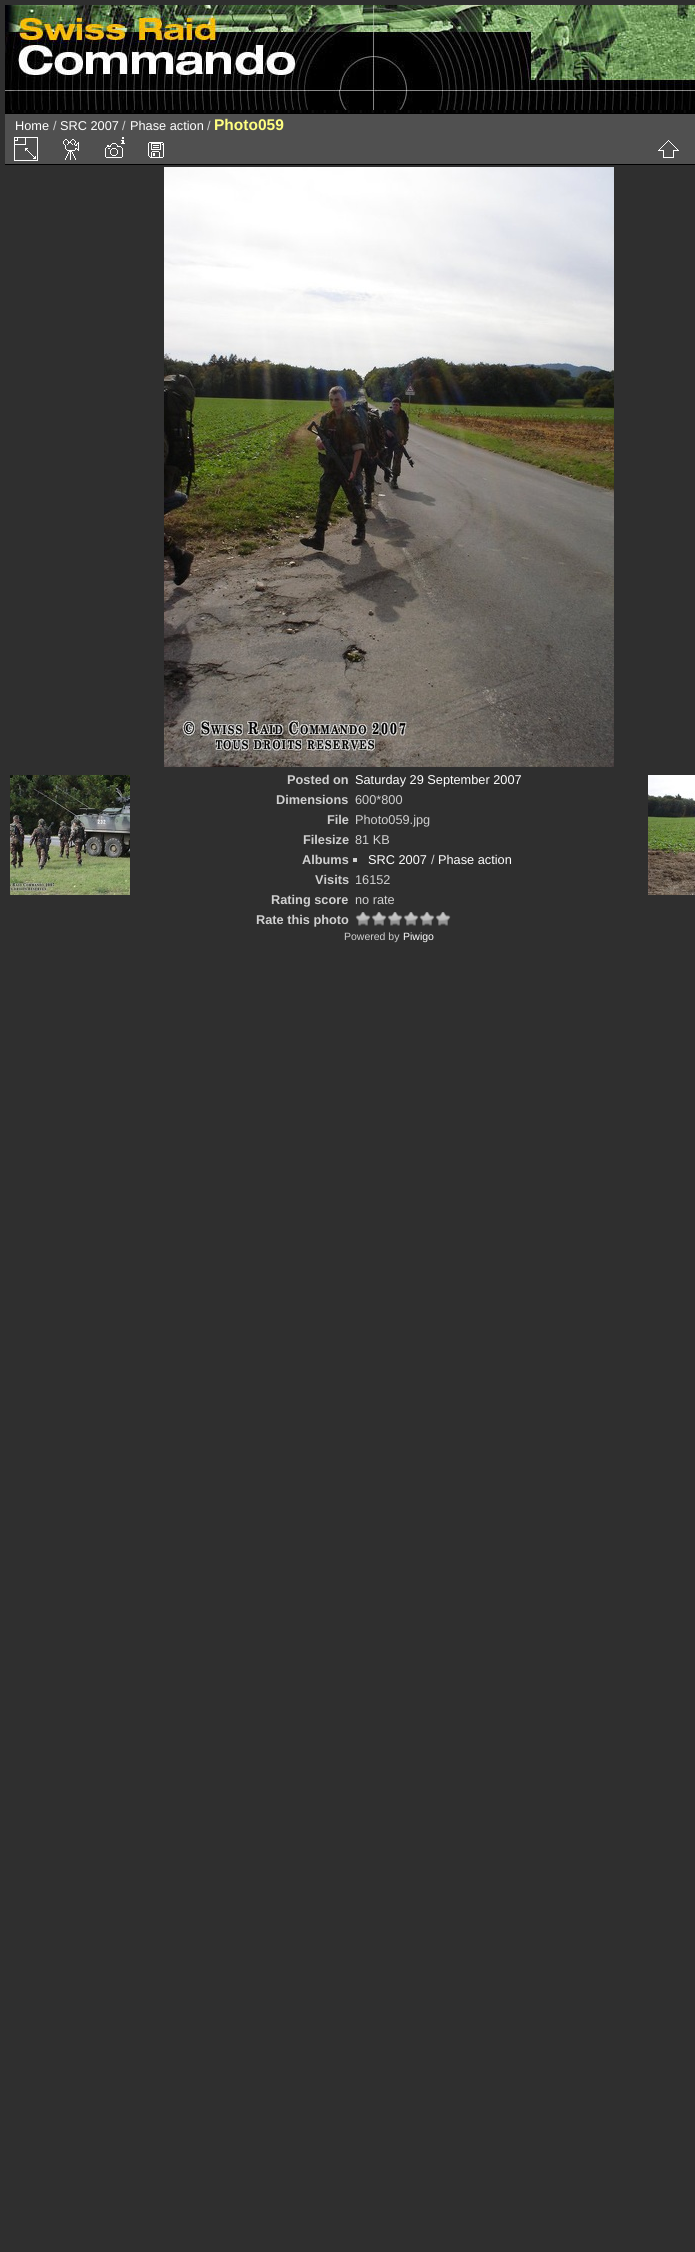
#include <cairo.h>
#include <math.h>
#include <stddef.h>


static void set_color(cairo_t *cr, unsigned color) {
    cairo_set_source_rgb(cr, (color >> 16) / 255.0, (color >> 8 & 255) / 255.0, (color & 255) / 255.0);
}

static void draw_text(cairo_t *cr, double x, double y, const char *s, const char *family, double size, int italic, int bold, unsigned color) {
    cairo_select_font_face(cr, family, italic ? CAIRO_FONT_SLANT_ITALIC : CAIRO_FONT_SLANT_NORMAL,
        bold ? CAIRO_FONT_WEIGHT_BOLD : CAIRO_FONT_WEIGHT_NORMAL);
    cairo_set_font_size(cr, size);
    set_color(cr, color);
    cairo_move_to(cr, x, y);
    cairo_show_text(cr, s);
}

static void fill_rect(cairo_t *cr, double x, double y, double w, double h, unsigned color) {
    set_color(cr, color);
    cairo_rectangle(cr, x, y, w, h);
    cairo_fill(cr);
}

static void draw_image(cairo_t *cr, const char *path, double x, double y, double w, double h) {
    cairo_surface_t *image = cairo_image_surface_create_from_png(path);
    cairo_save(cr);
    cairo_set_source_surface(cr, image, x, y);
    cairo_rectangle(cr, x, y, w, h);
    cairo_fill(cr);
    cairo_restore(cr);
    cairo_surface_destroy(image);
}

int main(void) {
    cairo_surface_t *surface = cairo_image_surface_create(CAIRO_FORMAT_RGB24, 695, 2252);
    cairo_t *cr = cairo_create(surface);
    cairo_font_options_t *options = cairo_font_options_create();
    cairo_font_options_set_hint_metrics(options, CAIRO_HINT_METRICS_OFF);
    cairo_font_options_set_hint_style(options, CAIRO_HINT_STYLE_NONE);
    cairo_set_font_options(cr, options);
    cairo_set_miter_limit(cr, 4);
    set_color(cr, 0x2F2F2F);
    cairo_paint(cr);
    draw_image(cr, "assets/img1.png", 5, 110, 690, 3);
    draw_image(cr, "assets/img2.png", 5, 5, 690, 105);
    fill_rect(cr, 5, 114, 690, 50, 0x505050);
    fill_rect(cr, 5, 164, 690, 1, 0x000000);
    draw_image(cr, "assets/img3.png", 14, 137, 24, 24);
    draw_image(cr, "assets/img4.png", 63, 139, 16, 21);
    draw_image(cr, "assets/img5.png", 105, 137, 20, 21);
    draw_image(cr, "assets/img6.png", 148, 142, 16, 16);
    draw_image(cr, "assets/img7.png", 658, 140, 21, 18);
    fill_rect(cr, 5, 113, 690, 1, 0x000000);
    draw_text(cr, 15, 130, "Home", "Liberation Sans", 12.75, 0, 0, 0xFFFFFF);
    draw_text(cr, 53, 130, "/", "Liberation Sans", 12.75, 0, 0, 0xD0D0D0);
    draw_text(cr, 60, 130, "SRC 2007", "Liberation Sans", 12.75, 0, 0, 0xFFFFFF);
    draw_text(cr, 122, 130, "/", "Liberation Sans", 12.75, 0, 0, 0xD0D0D0);
    draw_text(cr, 130, 130, "Phase action", "Liberation Sans", 12.75, 0, 0, 0xFFFFFF);
    draw_text(cr, 207, 130, "/", "Liberation Sans", 12.75, 0, 0, 0xD0D0D0);
    draw_text(cr, 214, 130, "Photo059", "Liberation Sans", 15.5, 0, 1, 0xFFFF80);
    draw_image(cr, "assets/img8.png", 164, 167, 450, 600);
    draw_text(cr, 287, 784, "Posted on", "Liberation Sans", 12.75, 0, 1, 0xD0D0D0);
    draw_text(cr, 355, 784, "Saturday 29 September 2007", "Liberation Sans", 12.75, 0, 0, 0xFFFFFF);
    draw_text(cr, 276, 804, "Dimensions", "Liberation Sans", 12.75, 0, 1, 0xD0D0D0);
    draw_text(cr, 355, 804, "600*800", "Liberation Sans", 12.75, 0, 0, 0xD0D0D0);
    draw_text(cr, 327, 824, "File", "Liberation Sans", 12.75, 0, 1, 0xD0D0D0);
    draw_text(cr, 355, 824, "Photo059.jpg", "Liberation Sans", 12.75, 0, 0, 0xD0D0D0);
    draw_text(cr, 303, 844, "Filesize", "Liberation Sans", 12.75, 0, 1, 0xD0D0D0);
    draw_text(cr, 355, 844, "81 KB", "Liberation Sans", 12.75, 0, 0, 0xD0D0D0);
    draw_text(cr, 302, 864, "Albums", "Liberation Sans", 12.75, 0, 1, 0xD0D0D0);
    fill_rect(cr, 353, 858, 4, 4, 0xD0D0D0);
    draw_text(cr, 368, 864, "SRC 2007", "Liberation Sans", 12.75, 0, 0, 0xFFFFFF);
    draw_text(cr, 431, 864, "/", "Liberation Sans", 12.75, 0, 0, 0xD0D0D0);
    draw_text(cr, 438, 864, "Phase action", "Liberation Sans", 12.75, 0, 0, 0xFFFFFF);
    draw_text(cr, 315, 884, "Visits", "Liberation Sans", 12.75, 0, 1, 0xD0D0D0);
    draw_text(cr, 355, 884, "16152", "Liberation Sans", 12.75, 0, 0, 0xD0D0D0);
    draw_text(cr, 271, 904, "Rating score", "Liberation Sans", 12.75, 0, 1, 0xD0D0D0);
    draw_text(cr, 355, 904, "no rate", "Liberation Sans", 12.75, 0, 0, 0xD0D0D0);
    draw_text(cr, 256, 924, "Rate this photo", "Liberation Sans", 12.75, 0, 1, 0xD0D0D0);
    draw_image(cr, "assets/img9.png", 355, 912, 16, 14);
    draw_image(cr, "assets/img9.png", 371, 912, 16, 14);
    draw_image(cr, "assets/img9.png", 387, 912, 16, 14);
    draw_image(cr, "assets/img9.png", 403, 912, 16, 14);
    draw_image(cr, "assets/img9.png", 419, 912, 16, 14);
    draw_image(cr, "assets/img9.png", 435, 912, 16, 14);
    draw_image(cr, "assets/img10.png", 10, 775, 120, 120);
    draw_image(cr, "assets/img11.png", 648, 775, 47, 120);
    draw_text(cr, 344, 940, "Powered by", "Liberation Sans", 10.5, 0, 0, 0xD0D0D0);
    draw_text(cr, 403, 940, "Piwigo", "Liberation Sans", 10.5, 0, 0, 0xFFFFFF);
    cairo_surface_write_to_png(surface, "output.png");
    cairo_font_options_destroy(options);
    cairo_destroy(cr);
    cairo_surface_destroy(surface);
    return 0;
}
